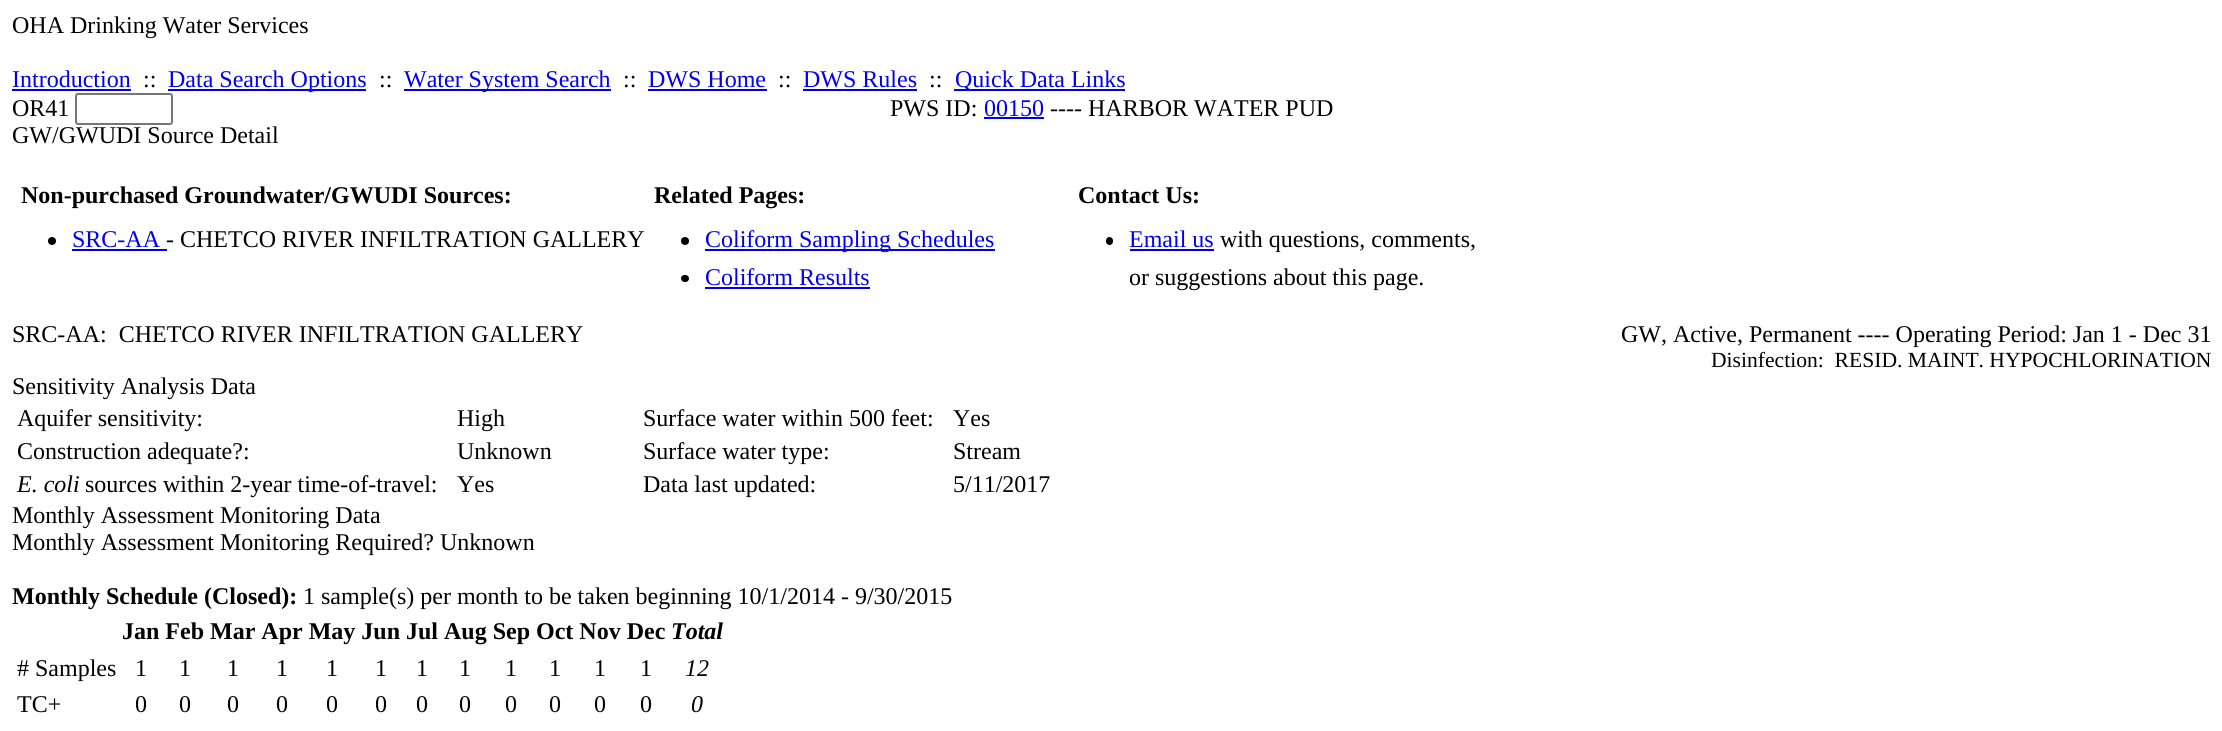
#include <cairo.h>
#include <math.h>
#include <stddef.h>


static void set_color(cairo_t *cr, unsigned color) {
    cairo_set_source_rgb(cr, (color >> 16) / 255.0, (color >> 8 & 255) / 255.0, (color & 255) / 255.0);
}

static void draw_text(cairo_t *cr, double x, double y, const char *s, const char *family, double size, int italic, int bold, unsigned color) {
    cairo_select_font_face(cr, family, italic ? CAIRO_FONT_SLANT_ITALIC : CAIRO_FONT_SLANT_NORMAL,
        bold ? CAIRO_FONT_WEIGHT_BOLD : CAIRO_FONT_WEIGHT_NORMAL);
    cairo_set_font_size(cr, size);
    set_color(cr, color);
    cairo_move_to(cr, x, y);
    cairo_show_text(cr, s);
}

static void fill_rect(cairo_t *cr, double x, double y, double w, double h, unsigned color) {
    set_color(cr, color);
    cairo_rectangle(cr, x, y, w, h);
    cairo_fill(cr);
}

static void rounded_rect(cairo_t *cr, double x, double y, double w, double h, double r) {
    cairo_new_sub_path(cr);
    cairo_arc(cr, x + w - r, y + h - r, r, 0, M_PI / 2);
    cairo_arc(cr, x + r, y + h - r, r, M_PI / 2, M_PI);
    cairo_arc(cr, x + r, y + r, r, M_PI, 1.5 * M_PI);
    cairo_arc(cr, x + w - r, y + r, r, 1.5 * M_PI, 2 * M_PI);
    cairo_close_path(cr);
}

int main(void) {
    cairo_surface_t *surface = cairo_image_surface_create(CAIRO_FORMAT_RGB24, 2222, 731);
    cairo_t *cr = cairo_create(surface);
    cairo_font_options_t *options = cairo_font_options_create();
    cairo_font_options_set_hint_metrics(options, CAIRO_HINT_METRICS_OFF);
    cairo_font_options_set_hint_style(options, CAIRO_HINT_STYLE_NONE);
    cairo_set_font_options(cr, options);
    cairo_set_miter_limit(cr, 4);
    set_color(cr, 0xFFFFFF);
    cairo_paint(cr);
    draw_text(cr, 12, 33, "OHA Drinking Water Services", "Liberation Serif", 24, 0, 0, 0x000000);
    draw_text(cr, 12, 87, "Introduction", "Liberation Serif", 24, 0, 0, 0x0000EE);
    fill_rect(cr, 12, 89, 119, 2, 0x0000EE);
    draw_text(cr, 143, 87, "::", "Liberation Serif", 24, 0, 0, 0x000000);
    fill_rect(cr, 168, 89, 198, 2, 0x0000EE);
    draw_text(cr, 168, 87, "Data Search Options", "Liberation Serif", 24, 0, 0, 0x0000EE);
    draw_text(cr, 379, 87, "::", "Liberation Serif", 24, 0, 0, 0x000000);
    fill_rect(cr, 404, 89, 207, 2, 0x0000EE);
    draw_text(cr, 404, 87, "Water System Search", "Liberation Serif", 24, 0, 0, 0x0000EE);
    draw_text(cr, 623, 87, "::", "Liberation Serif", 24, 0, 0, 0x000000);
    draw_text(cr, 648, 87, "DWS Home", "Liberation Serif", 24, 0, 0, 0x0000EE);
    fill_rect(cr, 648, 89, 119, 2, 0x0000EE);
    draw_text(cr, 778, 87, "::", "Liberation Serif", 24, 0, 0, 0x000000);
    draw_text(cr, 803, 87, "DWS Rules", "Liberation Serif", 24, 0, 0, 0x0000EE);
    fill_rect(cr, 803, 89, 114, 2, 0x0000EE);
    draw_text(cr, 929, 87, "::", "Liberation Serif", 24, 0, 0, 0x000000);
    fill_rect(cr, 954, 89, 171, 2, 0x0000EE);
    draw_text(cr, 955, 87, "Quick Data Links", "Liberation Serif", 24, 0, 0, 0x0000EE);
    draw_text(cr, 12, 116, "OR41", "Liberation Serif", 24, 0, 0, 0x000000);
    rounded_rect(cr, 76, 94, 96, 30, 2);
    set_color(cr, 0x767676);
    cairo_stroke(cr);
    draw_text(cr, 890, 116, "PWS ID:", "Liberation Serif", 24, 0, 0, 0x000000);
    draw_text(cr, 984, 116, "00150", "Liberation Serif", 24, 0, 0, 0x0000EE);
    fill_rect(cr, 984, 117, 60, 2, 0x0000EE);
    draw_text(cr, 1050, 116, "---- HARBOR WATER PUD", "Liberation Serif", 24, 0, 0, 0x000000);
    draw_text(cr, 12, 143, "GW/GWUDI Source Detail", "Liberation Serif", 24, 0, 0, 0x000000);
    draw_text(cr, 21, 203, "Non-purchased Groundwater/GWUDI Sources:", "Liberation Serif", 24, 0, 1, 0x000000);
    cairo_new_path(cr);
    cairo_arc(cr, 52, 241, 4, 0, 2 * M_PI);
    cairo_fill(cr);
    draw_text(cr, 72, 247, "SRC-AA", "Liberation Serif", 24, 0, 0, 0x0000EE);
    fill_rect(cr, 72, 249, 95, 2, 0x0000EE);
    draw_text(cr, 166, 247, "- CHETCO RIVER INFILTRATION GALLERY", "Liberation Serif", 24, 0, 0, 0x000000);
    draw_text(cr, 654, 203, "Related Pages:", "Liberation Serif", 24, 0, 1, 0x000000);
    cairo_new_path(cr);
    cairo_arc(cr, 685, 241, 4, 0, 2 * M_PI);
    cairo_fill(cr);
    fill_rect(cr, 705, 249, 290, 2, 0x0000EE);
    draw_text(cr, 705, 247, "Coliform Sampling Schedules", "Liberation Serif", 24, 0, 0, 0x0000EE);
    set_color(cr, 0x000000);
    rounded_rect(cr, 681, 275, 8, 7, 3.5);
    cairo_fill(cr);
    draw_text(cr, 705, 285, "Coliform Results", "Liberation Serif", 24, 0, 0, 0x0000EE);
    fill_rect(cr, 705, 287, 165, 2, 0x0000EE);
    draw_text(cr, 1078, 203, "Contact Us:", "Liberation Serif", 24, 0, 1, 0x000000);
    rounded_rect(cr, 1106, 237, 7, 8, 3.5);
    cairo_fill(cr);
    draw_text(cr, 1129, 247, "Email us", "Liberation Serif", 24, 0, 0, 0x0000EE);
    fill_rect(cr, 1130, 249, 84, 2, 0x0000EE);
    draw_text(cr, 1220, 247, "with questions, comments,", "Liberation Serif", 24, 0, 0, 0x000000);
    draw_text(cr, 1129, 285, "or suggestions about this page.", "Liberation Serif", 24, 0, 0, 0x000000);
    draw_text(cr, 12, 342, "SRC-AA:  CHETCO RIVER INFILTRATION GALLERY", "Liberation Serif", 24, 0, 0, 0x000000);
    draw_text(cr, 1621, 342, "GW, Active, Permanent ---- Operating Period: Jan 1 - Dec 31", "Liberation Serif", 24, 0, 0, 0x000000);
    draw_text(cr, 1711, 367, "Disinfection:  RESID. MAINT. HYPOCHLORINATION", "Liberation Serif", 21.6, 0, 0, 0x000000);
    draw_text(cr, 12, 394, "Sensitivity Analysis Data", "Liberation Serif", 24, 0, 0, 0x000000);
    draw_text(cr, 17, 426, "Aquifer sensitivity:", "Liberation Serif", 24, 0, 0, 0x000000);
    draw_text(cr, 457, 426, "High", "Liberation Serif", 24, 0, 0, 0x000000);
    draw_text(cr, 643, 426, "Surface water within 500 feet:", "Liberation Serif", 24, 0, 0, 0x000000);
    draw_text(cr, 953, 426, "Yes", "Liberation Serif", 24, 0, 0, 0x000000);
    draw_text(cr, 17, 459, "Construction adequate?:", "Liberation Serif", 24, 0, 0, 0x000000);
    draw_text(cr, 457, 459, "Unknown", "Liberation Serif", 24, 0, 0, 0x000000);
    draw_text(cr, 643, 459, "Surface water type:", "Liberation Serif", 24, 0, 0, 0x000000);
    draw_text(cr, 953, 459, "Stream", "Liberation Serif", 24, 0, 0, 0x000000);
    draw_text(cr, 17, 492, "E. coli", "Liberation Serif", 24, 1, 0, 0x000000);
    draw_text(cr, 85, 492, "sources within 2-year time-of-travel:", "Liberation Serif", 24, 0, 0, 0x000000);
    draw_text(cr, 457, 492, "Yes", "Liberation Serif", 24, 0, 0, 0x000000);
    draw_text(cr, 643, 492, "Data last updated:", "Liberation Serif", 24, 0, 0, 0x000000);
    draw_text(cr, 953, 492, "5/11/2017", "Liberation Serif", 24, 0, 0, 0x000000);
    draw_text(cr, 12, 523, "Monthly Assessment Monitoring Data", "Liberation Serif", 24, 0, 0, 0x000000);
    draw_text(cr, 12, 550, "Monthly Assessment Monitoring Required? Unknown", "Liberation Serif", 24, 0, 0, 0x000000);
    draw_text(cr, 12, 604, "Monthly Schedule (Closed):", "Liberation Serif", 24, 0, 1, 0x000000);
    draw_text(cr, 303, 604, "1 sample(s) per month to be taken beginning 10/1/2014 - 9/30/2015", "Liberation Serif", 24, 0, 0, 0x000000);
    draw_text(cr, 122, 639, "Jan Feb Mar Apr May Jun Jul Aug Sep Oct Nov Dec", "Liberation Serif", 24, 0, 1, 0x000000);
    draw_text(cr, 671, 639, "Total", "Liberation Serif", 24, 1, 1, 0x000000);
    draw_text(cr, 17, 676, "# Samples", "Liberation Serif", 24, 0, 0, 0x000000);
    draw_text(cr, 17, 712, "TC+", "Liberation Serif", 24, 0, 0, 0x000000);
    draw_text(cr, 135, 676, "1", "Liberation Serif", 24, 0, 0, 0x000000);
    draw_text(cr, 135, 712, "0", "Liberation Serif", 24, 0, 0, 0x000000);
    draw_text(cr, 179, 676, "1", "Liberation Serif", 24, 0, 0, 0x000000);
    draw_text(cr, 179, 712, "0", "Liberation Serif", 24, 0, 0, 0x000000);
    draw_text(cr, 227, 676, "1", "Liberation Serif", 24, 0, 0, 0x000000);
    draw_text(cr, 227, 712, "0", "Liberation Serif", 24, 0, 0, 0x000000);
    draw_text(cr, 276, 676, "1", "Liberation Serif", 24, 0, 0, 0x000000);
    draw_text(cr, 276, 712, "0", "Liberation Serif", 24, 0, 0, 0x000000);
    draw_text(cr, 326, 676, "1", "Liberation Serif", 24, 0, 0, 0x000000);
    draw_text(cr, 326, 712, "0", "Liberation Serif", 24, 0, 0, 0x000000);
    draw_text(cr, 375, 676, "1", "Liberation Serif", 24, 0, 0, 0x000000);
    draw_text(cr, 375, 712, "0", "Liberation Serif", 24, 0, 0, 0x000000);
    draw_text(cr, 416, 676, "1", "Liberation Serif", 24, 0, 0, 0x000000);
    draw_text(cr, 416, 712, "0", "Liberation Serif", 24, 0, 0, 0x000000);
    draw_text(cr, 459, 676, "1", "Liberation Serif", 24, 0, 0, 0x000000);
    draw_text(cr, 459, 712, "0", "Liberation Serif", 24, 0, 0, 0x000000);
    draw_text(cr, 505, 676, "1", "Liberation Serif", 24, 0, 0, 0x000000);
    draw_text(cr, 505, 712, "0", "Liberation Serif", 24, 0, 0, 0x000000);
    draw_text(cr, 549, 676, "1", "Liberation Serif", 24, 0, 0, 0x000000);
    draw_text(cr, 549, 712, "0", "Liberation Serif", 24, 0, 0, 0x000000);
    draw_text(cr, 594, 676, "1", "Liberation Serif", 24, 0, 0, 0x000000);
    draw_text(cr, 594, 712, "0", "Liberation Serif", 24, 0, 0, 0x000000);
    draw_text(cr, 640, 676, "1", "Liberation Serif", 24, 0, 0, 0x000000);
    draw_text(cr, 640, 712, "0", "Liberation Serif", 24, 0, 0, 0x000000);
    draw_text(cr, 685, 676, "12", "Liberation Serif", 24, 1, 0, 0x000000);
    draw_text(cr, 691, 712, "0", "Liberation Serif", 24, 1, 0, 0x000000);
    cairo_surface_write_to_png(surface, "output.png");
    cairo_font_options_destroy(options);
    cairo_destroy(cr);
    cairo_surface_destroy(surface);
    return 0;
}
